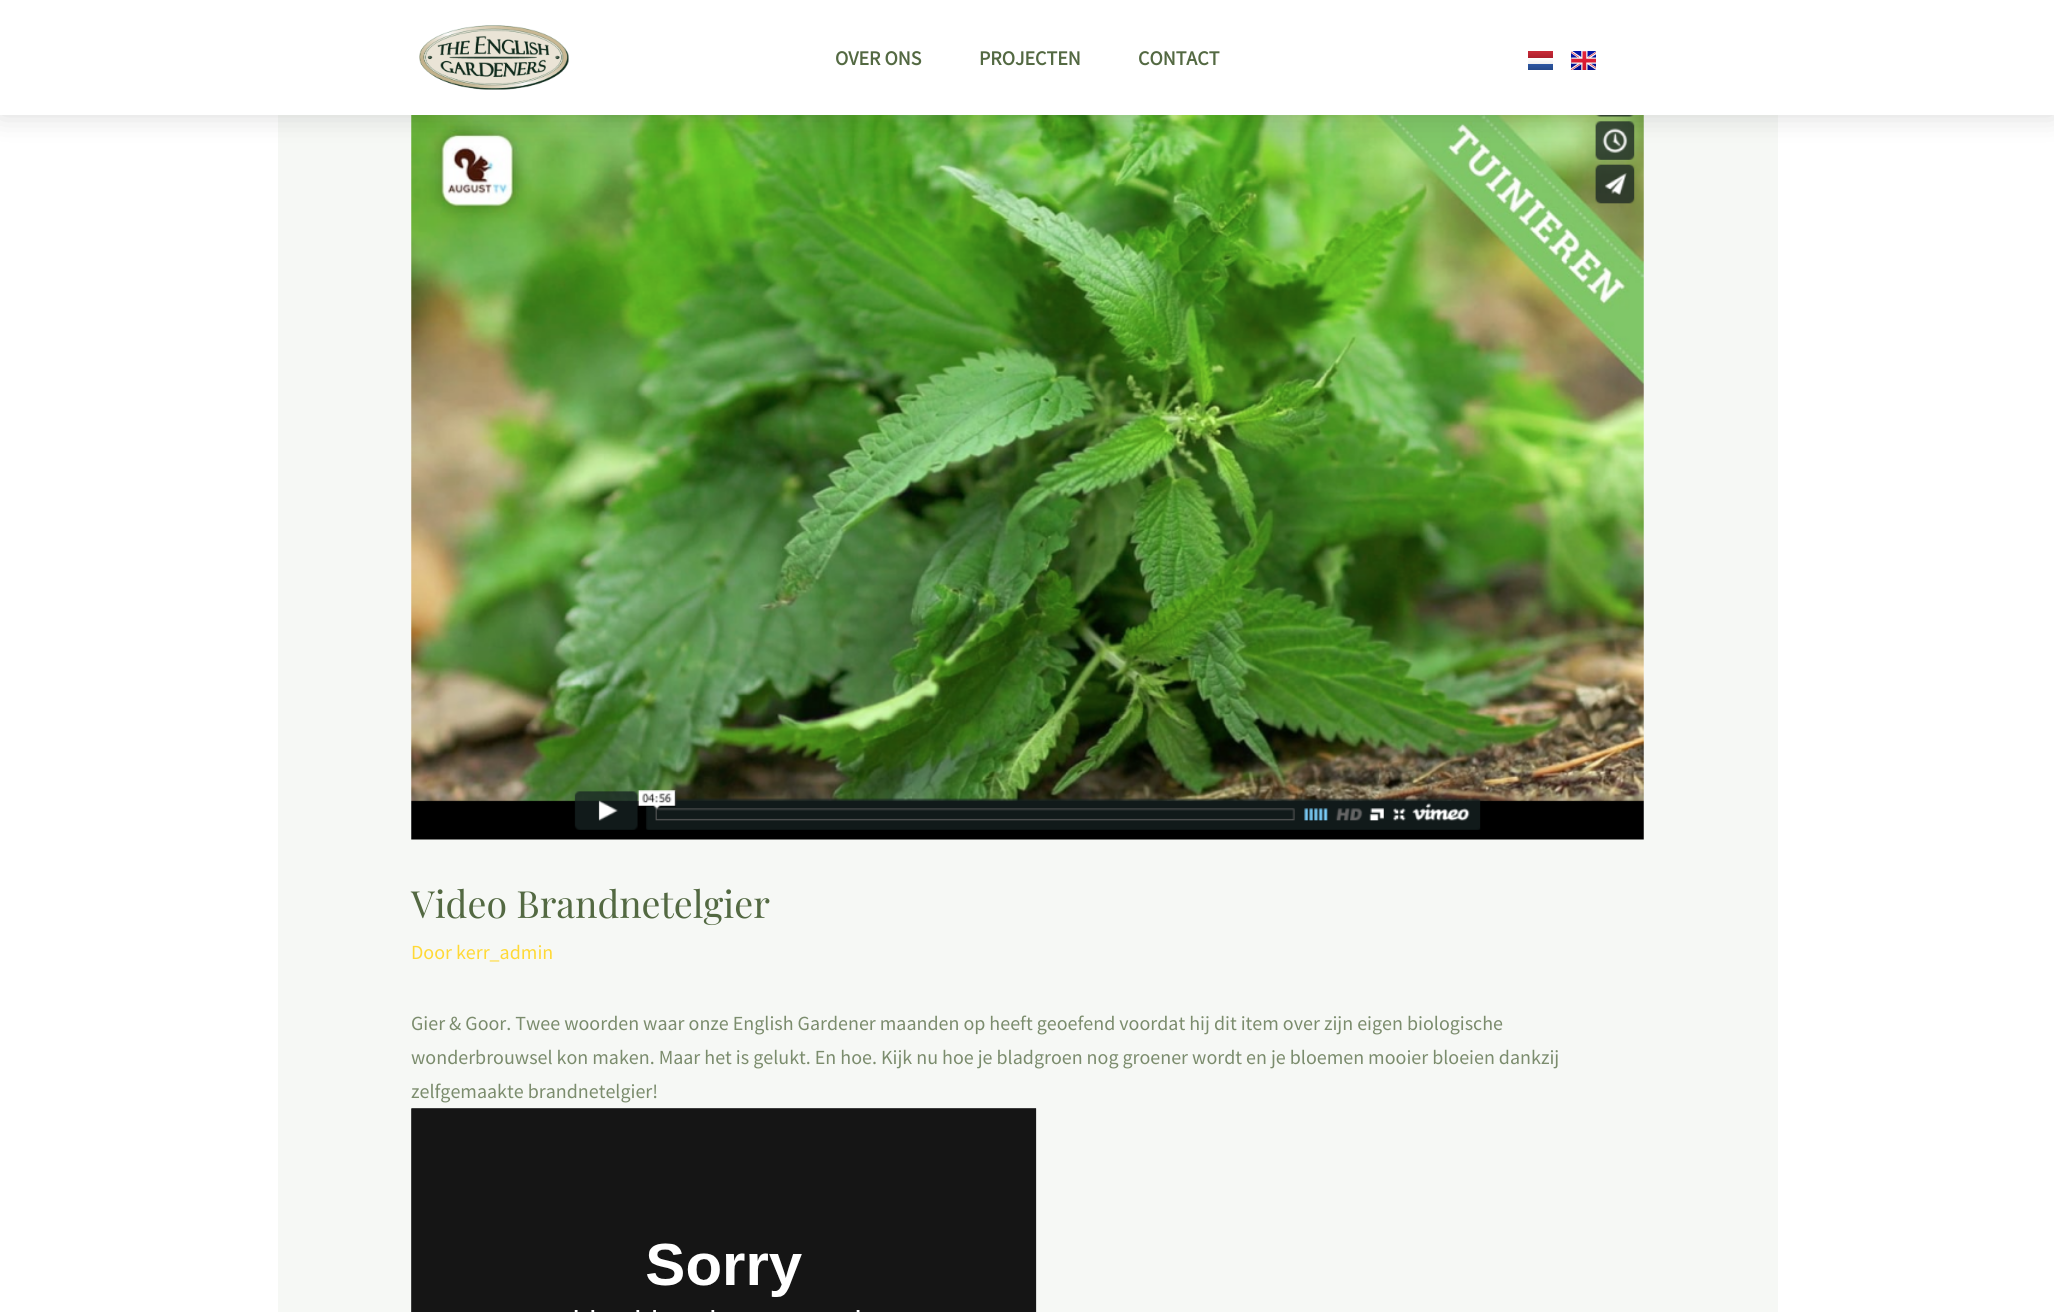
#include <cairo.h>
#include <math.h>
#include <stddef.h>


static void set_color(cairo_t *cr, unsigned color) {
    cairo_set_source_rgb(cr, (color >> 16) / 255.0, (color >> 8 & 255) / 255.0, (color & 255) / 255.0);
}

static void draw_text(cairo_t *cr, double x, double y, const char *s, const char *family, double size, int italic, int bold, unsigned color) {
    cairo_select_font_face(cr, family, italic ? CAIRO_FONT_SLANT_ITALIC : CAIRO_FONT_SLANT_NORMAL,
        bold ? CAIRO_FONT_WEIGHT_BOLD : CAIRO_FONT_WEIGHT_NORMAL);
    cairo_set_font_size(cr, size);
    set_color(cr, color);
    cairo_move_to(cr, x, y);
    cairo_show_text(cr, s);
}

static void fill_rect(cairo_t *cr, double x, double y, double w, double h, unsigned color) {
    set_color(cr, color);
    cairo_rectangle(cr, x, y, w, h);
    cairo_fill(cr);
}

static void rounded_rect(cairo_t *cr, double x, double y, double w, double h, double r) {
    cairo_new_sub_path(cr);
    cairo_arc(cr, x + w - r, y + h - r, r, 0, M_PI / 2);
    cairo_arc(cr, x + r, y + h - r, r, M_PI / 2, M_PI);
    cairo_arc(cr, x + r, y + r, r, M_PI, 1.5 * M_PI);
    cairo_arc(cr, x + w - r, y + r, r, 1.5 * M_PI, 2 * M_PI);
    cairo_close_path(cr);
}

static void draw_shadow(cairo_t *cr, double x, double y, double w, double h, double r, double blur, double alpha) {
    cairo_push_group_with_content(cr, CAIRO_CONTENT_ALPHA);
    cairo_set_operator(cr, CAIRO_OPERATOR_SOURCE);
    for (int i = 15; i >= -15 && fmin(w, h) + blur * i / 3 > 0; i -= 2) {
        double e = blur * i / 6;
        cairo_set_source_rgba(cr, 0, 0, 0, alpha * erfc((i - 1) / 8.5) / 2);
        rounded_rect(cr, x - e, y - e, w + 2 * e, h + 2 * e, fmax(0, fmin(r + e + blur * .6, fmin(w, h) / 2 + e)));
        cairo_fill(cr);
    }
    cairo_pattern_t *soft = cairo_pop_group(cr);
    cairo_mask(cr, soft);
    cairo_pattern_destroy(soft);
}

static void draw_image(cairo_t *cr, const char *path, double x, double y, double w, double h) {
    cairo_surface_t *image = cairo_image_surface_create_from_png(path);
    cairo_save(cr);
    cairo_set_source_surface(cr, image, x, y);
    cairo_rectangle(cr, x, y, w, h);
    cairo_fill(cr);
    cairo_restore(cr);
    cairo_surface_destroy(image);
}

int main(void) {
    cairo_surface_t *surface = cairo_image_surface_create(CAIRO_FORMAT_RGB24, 2054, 1312);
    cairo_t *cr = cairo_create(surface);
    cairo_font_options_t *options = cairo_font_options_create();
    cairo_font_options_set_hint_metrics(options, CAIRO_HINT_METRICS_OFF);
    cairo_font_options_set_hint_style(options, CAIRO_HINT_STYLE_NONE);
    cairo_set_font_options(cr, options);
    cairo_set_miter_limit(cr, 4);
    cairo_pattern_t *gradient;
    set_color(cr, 0xFFFFFF);
    cairo_paint(cr);
    fill_rect(cr, 278, 115, 1500, 1197, 0xF6F8F5);
    draw_image(cr, "assets/img3.png", 411, 115, 1233, 725);
    set_color(cr, 0x000000);
    draw_shadow(cr, 0, 0, 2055, 115, 0, 15, 0.15);
    fill_rect(cr, 0, 0, 2054, 115, 0xFFFFFF);
    draw_image(cr, "assets/img1.png", 419, 25, 150, 65);
    draw_text(cr, 835, 65, "OVER ONS", "Source Sans Pro", 20, 0, 1, 0x536942);
    draw_text(cr, 979, 65, "PROJECTEN", "Source Sans Pro", 20, 0, 1, 0x536942);
    draw_text(cr, 1138, 65, "CONTACT", "Source Sans Pro", 20, 0, 1, 0x536942);
    gradient = cairo_pattern_create_linear(1541, 51, 1541, 58);
    cairo_pattern_add_color_stop_rgba(gradient, 0, 0.792, 0.169, 0.224, 1);
    cairo_pattern_add_color_stop_rgba(gradient, 1, 0.675, 0.122, 0.173, 1);
    cairo_set_source(cr, gradient);
    cairo_pattern_destroy(gradient);
    cairo_rectangle(cr, 1528, 51, 25, 7);
    cairo_fill(cr);
    gradient = cairo_pattern_create_linear(1541, 58, 1541, 64);
    cairo_pattern_add_color_stop_rgba(gradient, 0, 1, 1, 1, 1);
    cairo_pattern_add_color_stop_rgba(gradient, 1, 0.941, 0.941, 0.941, 1);
    cairo_set_source(cr, gradient);
    cairo_pattern_destroy(gradient);
    cairo_rectangle(cr, 1528, 59, 25, 5);
    cairo_fill(cr);
    gradient = cairo_pattern_create_linear(1541, 64, 1541, 70);
    cairo_pattern_add_color_stop_rgba(gradient, 0, 0.173, 0.337, 0.635, 1);
    cairo_pattern_add_color_stop_rgba(gradient, 1, 0.141, 0.282, 0.537, 1);
    cairo_set_source(cr, gradient);
    cairo_pattern_destroy(gradient);
    cairo_rectangle(cr, 1528, 64, 25, 6);
    cairo_fill(cr);
    draw_image(cr, "assets/img2.png", 1571, 51, 25, 19);
    draw_text(cr, 411, 918, "Video Brandnetelgier", "Playfair Display", 37.5, 0, 0, 0x536942);
    draw_text(cr, 411, 959, "Door kerr_admin", "Source Sans Pro", 20, 0, 0, 0xFFD936);
    draw_text(cr, 411, 1030, "Gier & Goor. Twee woorden waar onze English Gardener maanden op heeft geoefend voordat hij dit item over zijn eigen biologische", "Source Sans Pro", 20, 0, 0, 0x7B8C6D);
    draw_text(cr, 411, 1064, "wonderbrouwsel kon maken. Maar het is gelukt. En hoe. Kijk nu hoe je bladgroen nog groener wordt en je bloemen mooier bloeien dankzij", "Source Sans Pro", 20, 0, 0, 0x7B8C6D);
    draw_text(cr, 411, 1098, "zelfgemaakte brandnetelgier!", "Source Sans Pro", 20, 0, 0, 0x7B8C6D);
    draw_image(cr, "assets/img4.png", 411, 1108, 626, 204);
    cairo_surface_write_to_png(surface, "output.png");
    cairo_font_options_destroy(options);
    cairo_destroy(cr);
    cairo_surface_destroy(surface);
    return 0;
}
